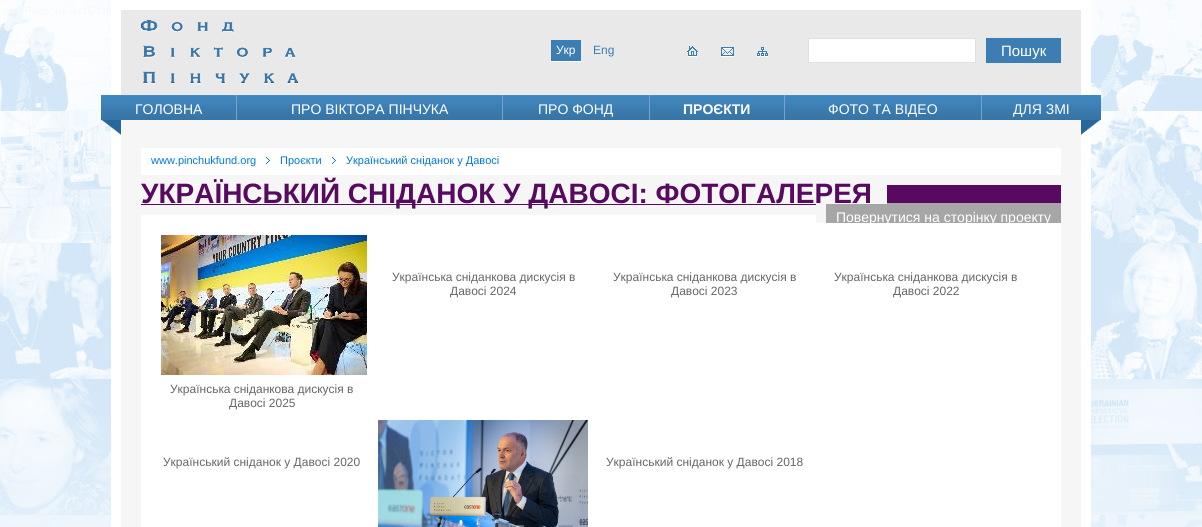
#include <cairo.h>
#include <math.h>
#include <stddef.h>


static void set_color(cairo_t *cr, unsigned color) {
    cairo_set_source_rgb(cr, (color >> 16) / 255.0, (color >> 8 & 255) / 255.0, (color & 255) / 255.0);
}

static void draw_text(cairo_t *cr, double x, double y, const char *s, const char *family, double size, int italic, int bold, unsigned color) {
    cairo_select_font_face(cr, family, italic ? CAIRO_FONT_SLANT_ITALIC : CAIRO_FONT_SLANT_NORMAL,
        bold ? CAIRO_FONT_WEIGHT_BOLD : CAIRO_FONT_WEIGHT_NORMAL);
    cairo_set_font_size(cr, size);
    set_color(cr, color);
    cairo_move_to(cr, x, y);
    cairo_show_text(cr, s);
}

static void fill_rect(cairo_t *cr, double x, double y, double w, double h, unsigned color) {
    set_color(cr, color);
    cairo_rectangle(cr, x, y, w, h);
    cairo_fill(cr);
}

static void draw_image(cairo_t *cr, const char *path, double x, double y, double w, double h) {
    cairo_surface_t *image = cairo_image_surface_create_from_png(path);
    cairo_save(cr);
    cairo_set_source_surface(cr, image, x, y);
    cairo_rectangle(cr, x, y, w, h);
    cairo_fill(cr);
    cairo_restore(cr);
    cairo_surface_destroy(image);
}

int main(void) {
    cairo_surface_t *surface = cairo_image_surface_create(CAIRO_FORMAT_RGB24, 1202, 527);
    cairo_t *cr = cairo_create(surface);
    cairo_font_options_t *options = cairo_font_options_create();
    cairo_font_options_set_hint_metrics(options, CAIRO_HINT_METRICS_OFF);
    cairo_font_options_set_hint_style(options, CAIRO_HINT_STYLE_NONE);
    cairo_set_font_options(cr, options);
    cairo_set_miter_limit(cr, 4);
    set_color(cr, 0xFFFFFF);
    cairo_paint(cr);
    draw_image(cr, "assets/img1.png", 0, 0, 1202, 527);
    fill_rect(cr, 121, 95, 960, 432, 0xF6F6F6);
    cairo_rectangle(cr, 116, 5, 970, 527);
    set_color(cr, 0xFFFFFF);
    cairo_set_line_width(cr, 10);
    cairo_stroke(cr);
    fill_rect(cr, 121, 10, 960, 85, 0xE9E9E9);
    draw_image(cr, "assets/img2.png", 141, 20, 157, 64);
    fill_rect(cr, 551, 40, 30, 21, 0x3C7EB3);
    fill_rect(cr, 551, 61, 30, 1, 0xFFFFFF);
    draw_text(cr, 556, 54, "Укр", "Liberation Sans", 12, 0, 0, 0xFFFFFF);
    draw_text(cr, 593, 54, "Eng", "Liberation Sans", 12, 0, 0, 0x3C7EB3);
    draw_image(cr, "assets/img3.png", 687, 46, 11, 11);
    draw_image(cr, "assets/img4.png", 721, 47, 13, 10);
    draw_image(cr, "assets/img5.png", 757, 47, 11, 10);
    set_color(cr, 0xFFFFFF);
    cairo_rectangle(cr, 808.5, 38.5, 167, 24);
    cairo_fill_preserve(cr);
    set_color(cr, 0xE0E0E0);
    cairo_set_line_width(cr, 1);
    cairo_stroke(cr);
    fill_rect(cr, 986, 38, 75, 25, 0x3C7EB3);
    draw_text(cr, 1001, 56, "Пошук", "Liberation Sans", 15, 0, 0, 0xFFFFFF);
    draw_image(cr, "assets/img6.png", 101, 95, 20, 40);
    draw_image(cr, "assets/img7.png", 1081, 95, 20, 40);
    draw_image(cr, "assets/img8.png", 101, 95, 1000, 25);
    draw_text(cr, 135, 114, "ГОЛОВНА", "Liberation Sans", 14, 0, 0, 0xFFFFFF);
    draw_image(cr, "assets/img9.png", 236, 95, 1, 25);
    draw_text(cr, 291, 114, "ПРО ВІКТОРА ПІНЧУКА", "Liberation Sans", 14, 0, 0, 0xFFFFFF);
    draw_image(cr, "assets/img9.png", 502, 95, 1, 25);
    draw_text(cr, 538, 114, "ПРО ФОНД", "Liberation Sans", 14, 0, 0, 0xFFFFFF);
    draw_image(cr, "assets/img9.png", 649, 95, 1, 25);
    draw_text(cr, 683, 114, "ПРОЄКТИ", "Liberation Sans", 14, 0, 1, 0xFFFFFF);
    draw_image(cr, "assets/img9.png", 784, 95, 1, 25);
    draw_text(cr, 828, 114, "ФОТО ТА ВІДЕО", "Liberation Sans", 14, 0, 0, 0xFFFFFF);
    draw_image(cr, "assets/img9.png", 981, 95, 1, 25);
    draw_text(cr, 1013, 114, "ДЛЯ ЗМІ", "Liberation Sans", 14, 0, 0, 0xFFFFFF);
    fill_rect(cr, 141, 148, 920, 27, 0xFFFFFF);
    draw_text(cr, 151, 164, "www.pinchukfund.org", "Liberation Sans", 11, 0, 0, 0x0077DB);
    draw_image(cr, "assets/img10.png", 266, 157, 4, 7);
    draw_text(cr, 280, 164, "Проєкти", "Liberation Sans", 11, 0, 0, 0x0077DB);
    draw_image(cr, "assets/img10.png", 332, 157, 4, 7);
    draw_text(cr, 346, 164, "Український сніданок у Давосі", "Liberation Sans", 11, 0, 0, 0x0077DB);
    fill_rect(cr, 141, 215, 920, 312, 0xFFFFFF);
    fill_rect(cr, 141, 185, 920, 20, 0x570A60);
    fill_rect(cr, 826, 203, 235, 20, 0xA6A6A6);
    fill_rect(cr, 141, 185, 746, 19, 0xF6F6F6);
    fill_rect(cr, 816, 204, 10, 19, 0xF6F6F6);
    draw_text(cr, 141, 203, "УКРАЇНСЬКИЙ СНІДАНОК У ДАВОСІ: ФОТОГАЛЕРЕЯ", "Liberation Sans", 28, 0, 1, 0x570A60);
    draw_text(cr, 836, 222, "Повернутися на сторінку проекту", "Liberation Sans", 14, 0, 0, 0xFFFFFF);
    draw_text(cr, 392, 281, "Українська сніданкова дискусія в", "Liberation Sans", 12, 0, 0, 0x666666);
    draw_text(cr, 450, 295, "Давосі 2024", "Liberation Sans", 12, 0, 0, 0x666666);
    draw_text(cr, 613, 281, "Українська сніданкова дискусія в", "Liberation Sans", 12, 0, 0, 0x666666);
    draw_text(cr, 671, 295, "Давосі 2023", "Liberation Sans", 12, 0, 0, 0x666666);
    draw_text(cr, 834, 281, "Українська сніданкова дискусія в", "Liberation Sans", 12, 0, 0, 0x666666);
    draw_text(cr, 893, 295, "Давосі 2022", "Liberation Sans", 12, 0, 0, 0x666666);
    draw_image(cr, "assets/img11.png", 161, 235, 206, 140);
    draw_text(cr, 170, 393, "Українська сніданкова дискусія в", "Liberation Sans", 12, 0, 0, 0x666666);
    draw_text(cr, 229, 407, "Давосі 2025", "Liberation Sans", 12, 0, 0, 0x666666);
    draw_text(cr, 163, 466, "Український сніданок у Давосі 2020", "Liberation Sans", 12, 0, 0, 0x666666);
    draw_image(cr, "assets/img12.png", 378, 420, 210, 107);
    draw_text(cr, 606, 466, "Український сніданок у Давосі 2018", "Liberation Sans", 12, 0, 0, 0x666666);
    cairo_surface_write_to_png(surface, "output.png");
    cairo_font_options_destroy(options);
    cairo_destroy(cr);
    cairo_surface_destroy(surface);
    return 0;
}
